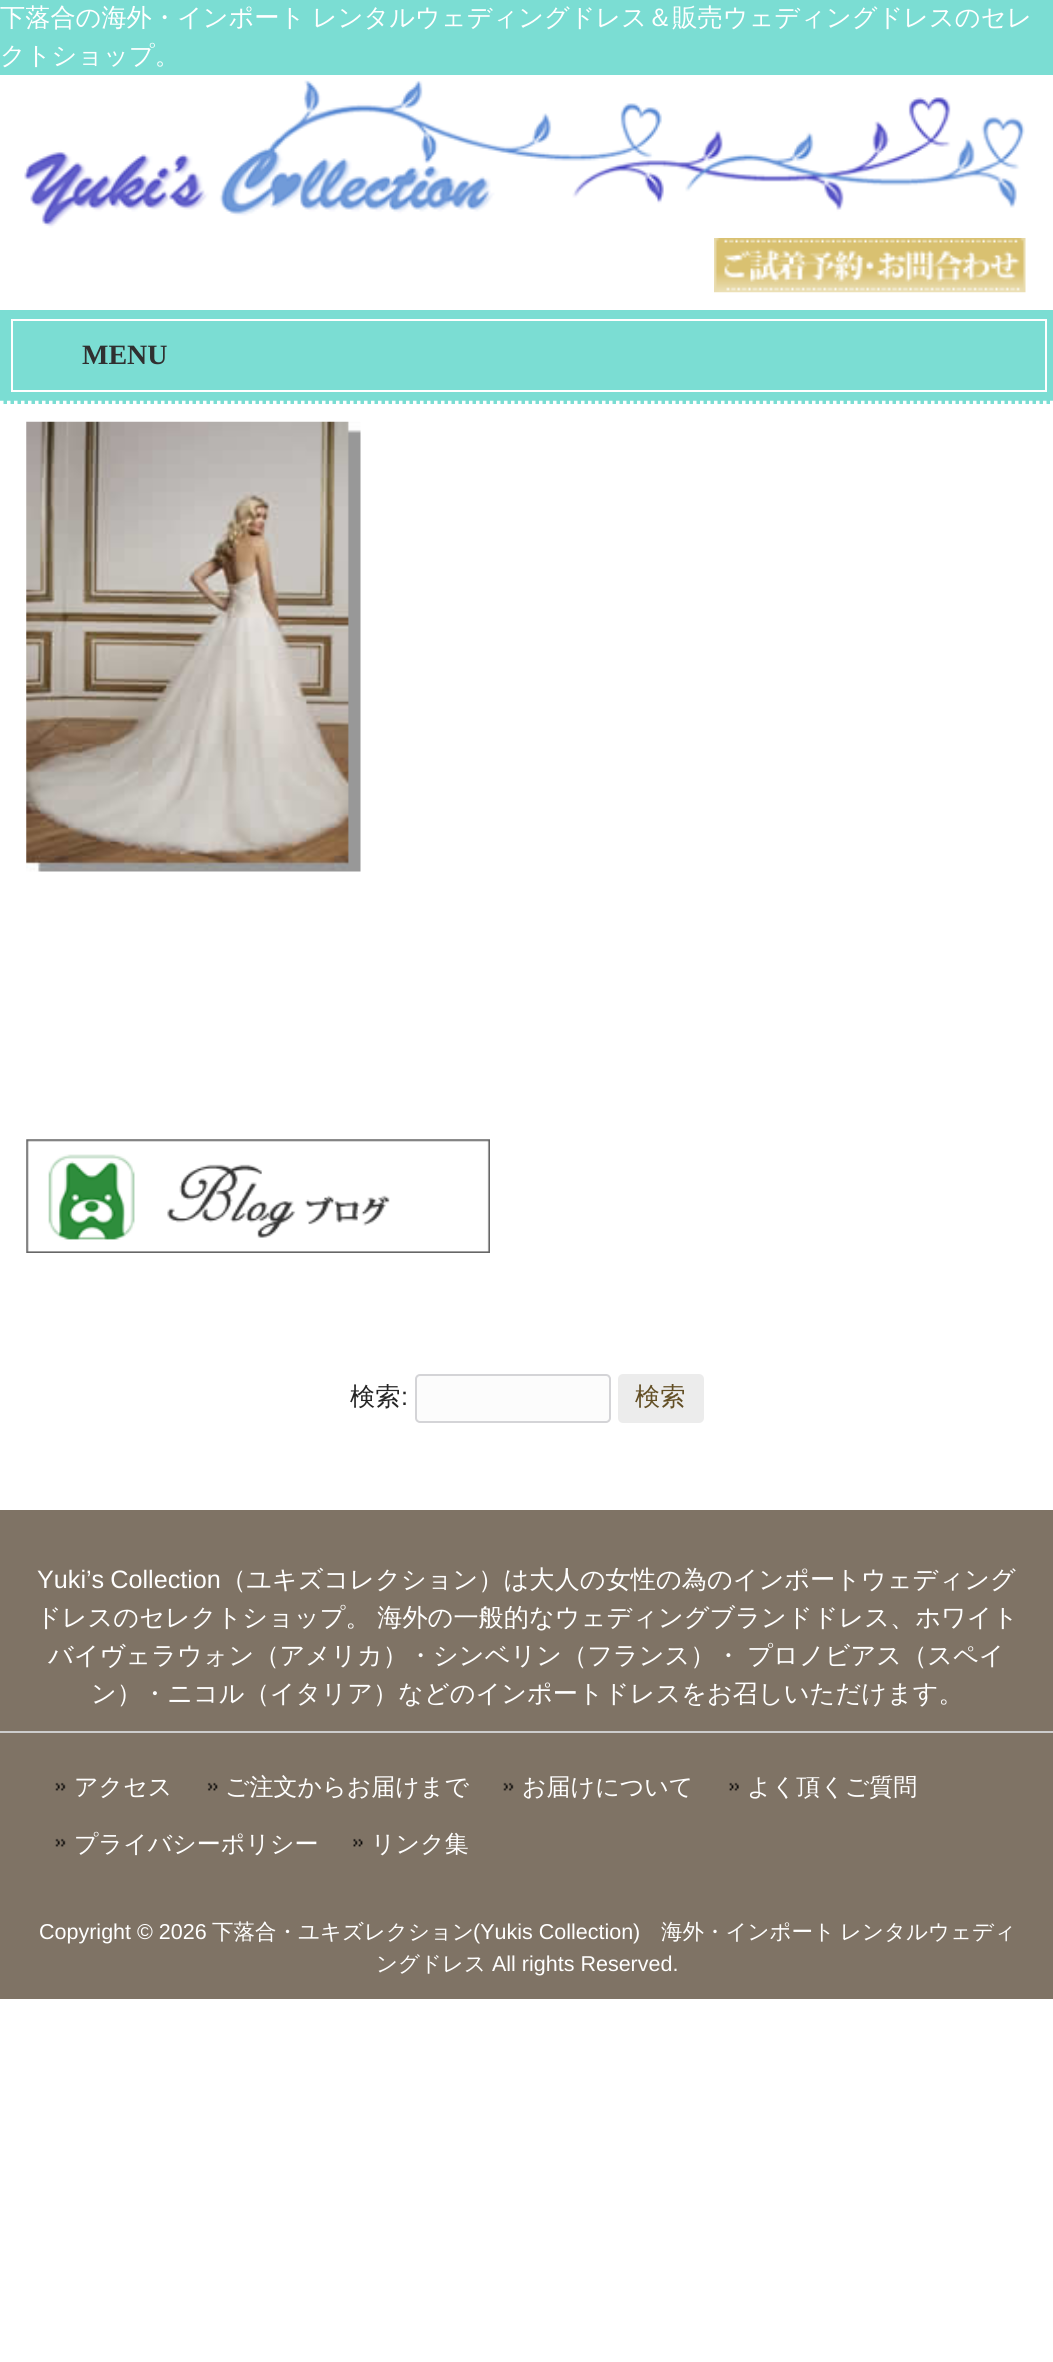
#include <cairo.h>
#include <math.h>
#include <stddef.h>


static void set_color(cairo_t *cr, unsigned color) {
    cairo_set_source_rgb(cr, (color >> 16) / 255.0, (color >> 8 & 255) / 255.0, (color & 255) / 255.0);
}

static void draw_text(cairo_t *cr, double x, double y, const char *s, const char *family, double size, int italic, int bold, unsigned color) {
    cairo_select_font_face(cr, family, italic ? CAIRO_FONT_SLANT_ITALIC : CAIRO_FONT_SLANT_NORMAL,
        bold ? CAIRO_FONT_WEIGHT_BOLD : CAIRO_FONT_WEIGHT_NORMAL);
    cairo_set_font_size(cr, size);
    set_color(cr, color);
    cairo_move_to(cr, x, y);
    cairo_show_text(cr, s);
}

static void draw_spaced(cairo_t *cr, double x, double y, const char *s, double letter, double word) {
    cairo_move_to(cr, x, y);
    while (*s) {
        char ch[5] = {0};
        int n = 0;
        do ch[n++] = *s++; while ((*s & 0xC0) == 0x80);
        cairo_show_text(cr, ch);
        cairo_rel_move_to(cr, letter + word * (*ch == ' '), 0);
    }
}

static void fill_rect(cairo_t *cr, double x, double y, double w, double h, unsigned color) {
    set_color(cr, color);
    cairo_rectangle(cr, x, y, w, h);
    cairo_fill(cr);
}

static void rounded_rect(cairo_t *cr, double x, double y, double w, double h, double r) {
    cairo_new_sub_path(cr);
    cairo_arc(cr, x + w - r, y + h - r, r, 0, M_PI / 2);
    cairo_arc(cr, x + r, y + h - r, r, M_PI / 2, M_PI);
    cairo_arc(cr, x + r, y + r, r, M_PI, 1.5 * M_PI);
    cairo_arc(cr, x + w - r, y + r, r, 1.5 * M_PI, 2 * M_PI);
    cairo_close_path(cr);
}

static void draw_image(cairo_t *cr, const char *path, double x, double y, double w, double h) {
    cairo_surface_t *image = cairo_image_surface_create_from_png(path);
    cairo_save(cr);
    cairo_set_source_surface(cr, image, x, y);
    cairo_rectangle(cr, x, y, w, h);
    cairo_fill(cr);
    cairo_restore(cr);
    cairo_surface_destroy(image);
}

int main(void) {
    cairo_surface_t *surface = cairo_image_surface_create(CAIRO_FORMAT_RGB24, 1053, 2362);
    cairo_t *cr = cairo_create(surface);
    cairo_font_options_t *options = cairo_font_options_create();
    cairo_font_options_set_hint_metrics(options, CAIRO_HINT_METRICS_OFF);
    cairo_font_options_set_hint_style(options, CAIRO_HINT_STYLE_NONE);
    cairo_set_font_options(cr, options);
    cairo_set_miter_limit(cr, 4);
    set_color(cr, 0xFFFFFF);
    cairo_paint(cr);
    fill_rect(cr, 0, 0, 1053, 75, 0x7BDDD3);
    cairo_select_font_face(cr, "WenQuanYi Zen Hei Medium", CAIRO_FONT_SLANT_NORMAL, CAIRO_FONT_WEIGHT_NORMAL);
    cairo_set_font_size(cr, 25.2);
    set_color(cr, 0xFFFFFF);
    draw_spaced(cr, 0, 26, "下落合の海外・インポート レンタルウェディングドレス＆販売ウェディングドレスのセレ", 0, -1);
    draw_text(cr, 0, 64, "クトショップ。", "WenQuanYi Zen Hei Medium", 25.2, 0, 0, 0xFFFFFF);
    draw_image(cr, "assets/img1.png", 24, 80, 1001, 148);
    draw_image(cr, "assets/img2.png", 714, 238, 312, 55);
    fill_rect(cr, 0, 310, 1053, 94, 0x7BDDD3);
    cairo_new_path(cr);
    cairo_move_to(cr, 0, 402.5);
    cairo_line_to(cr, 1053.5, 402.5);
    set_color(cr, 0xFFFFFF);
    cairo_set_line_width(cr, 3.5);
    cairo_set_dash(cr, (double[]){3.5, 3.5}, 2, 0);
    cairo_stroke(cr);
    cairo_rectangle(cr, 12, 320, 1034, 71);
    cairo_set_line_width(cr, 2);
    cairo_set_dash(cr, NULL, 0, 0);
    cairo_stroke(cr);
    draw_text(cr, 82, 364, "MENU", "Liberation Serif", 28, 0, 1, 0x303030);
    draw_image(cr, "assets/img3.png", 26, 421, 335, 451);
    draw_image(cr, "assets/img4.png", 26, 1139, 464, 114);
    draw_text(cr, 350, 1405, "検索", "WenQuanYi Zen Hei Medium", 25.2, 0, 0, 0x252525);
    draw_text(cr, 401, 1405, ":", "Liberation Sans", 25.2, 0, 0, 0x252525);
    set_color(cr, 0xFCFCFC);
    rounded_rect(cr, 416, 1375, 194, 47, 4);
    cairo_fill_preserve(cr);
    set_color(cr, 0xD4D4D7);
    cairo_stroke(cr);
    set_color(cr, 0xECECEC);
    rounded_rect(cr, 618, 1374, 86, 49, 5);
    cairo_fill(cr);
    draw_text(cr, 635, 1405, "検索", "WenQuanYi Zen Hei Medium", 25.2, 0, 0, 0x624E24);
    fill_rect(cr, 0, 1510, 1053, 489, 0x7F7365);
    cairo_select_font_face(cr, "Liberation Sans", CAIRO_FONT_SLANT_NORMAL, CAIRO_FONT_WEIGHT_NORMAL);
    set_color(cr, 0xFFFFFF);
    draw_spaced(cr, 37, 1588, "Yuki’s Collection", 0, -1);
    draw_text(cr, 221, 1588, "（ユキズコレクション）は大人の女性の為のインポートウェディング", "WenQuanYi Zen Hei Medium", 25.2, 0, 0, 0xFFFFFF);
    draw_spaced(cr, 36, 1626, "ドレスのセレクトショップ。 海外の一般的なウェディングブランドドレス、ホワイト", 0, -1);
    draw_spaced(cr, 48, 1664, "バイヴェラウォン（アメリカ）・シンベリン（フランス）・ プロノビアス（スペイ", 0, -1);
    draw_text(cr, 91, 1702, "ン）・ニコル（イタリア）などのインポートドレスをお召しいただけます。", "WenQuanYi Zen Hei Medium", 25.2, 0, 0, 0xFFFFFF);
    fill_rect(cr, 0, 1731, 1053, 2, 0xCCCCCC);
    draw_image(cr, "assets/img5.png", 55, 1782, 11, 9);
    draw_text(cr, 74, 1795, "アクセス", "WenQuanYi Zen Hei Medium", 24, 0, 0, 0xFFFFFF);
    draw_image(cr, "assets/img6.png", 207, 1782, 11, 9);
    draw_text(cr, 225, 1795, "ご注文からお届けまで", "WenQuanYi Zen Hei Medium", 24, 0, 0, 0xFFFFFF);
    draw_image(cr, "assets/img5.png", 503, 1782, 11, 9);
    draw_text(cr, 522, 1795, "お届けについて", "WenQuanYi Zen Hei Medium", 24, 0, 0, 0xFFFFFF);
    draw_image(cr, "assets/img7.png", 729, 1782, 10, 9);
    draw_text(cr, 747, 1795, "よく頂くご質問", "WenQuanYi Zen Hei Medium", 24, 0, 0, 0xFFFFFF);
    draw_image(cr, "assets/img5.png", 55, 1838, 11, 9);
    draw_text(cr, 74, 1852, "プライバシーポリシー", "WenQuanYi Zen Hei Medium", 24, 0, 0, 0xFFFFFF);
    draw_image(cr, "assets/img8.png", 353, 1838, 10, 9);
    draw_text(cr, 371, 1852, "リンク集", "WenQuanYi Zen Hei Medium", 24, 0, 0, 0xFFFFFF);
    draw_text(cr, 39, 1939, "Copyright © 2026", "Liberation Sans", 21.5, 0, 0, 0xFFFFFF);
    draw_text(cr, 212, 1939, "下落合・ユキズレクション", "WenQuanYi Zen Hei Medium", 21.5, 0, 0, 0xFFFFFF);
    draw_text(cr, 473, 1939, "(Yukis Collection)", "Liberation Sans", 21.5, 0, 0, 0xFFFFFF);
    draw_text(cr, 661, 1939, "海外・インポート", "WenQuanYi Zen Hei Medium", 21.5, 0, 0, 0xFFFFFF);
    draw_text(cr, 840, 1939, "レンタルウェディ", "WenQuanYi Zen Hei Medium", 21.5, 0, 0, 0xFFFFFF);
    draw_text(cr, 376, 1971, "ングドレス", "WenQuanYi Zen Hei Medium", 21.5, 0, 0, 0xFFFFFF);
    draw_text(cr, 492, 1971, "All rights Reserved.", "Liberation Sans", 21.5, 0, 0, 0xFFFFFF);
    cairo_surface_write_to_png(surface, "output.png");
    cairo_font_options_destroy(options);
    cairo_destroy(cr);
    cairo_surface_destroy(surface);
    return 0;
}
